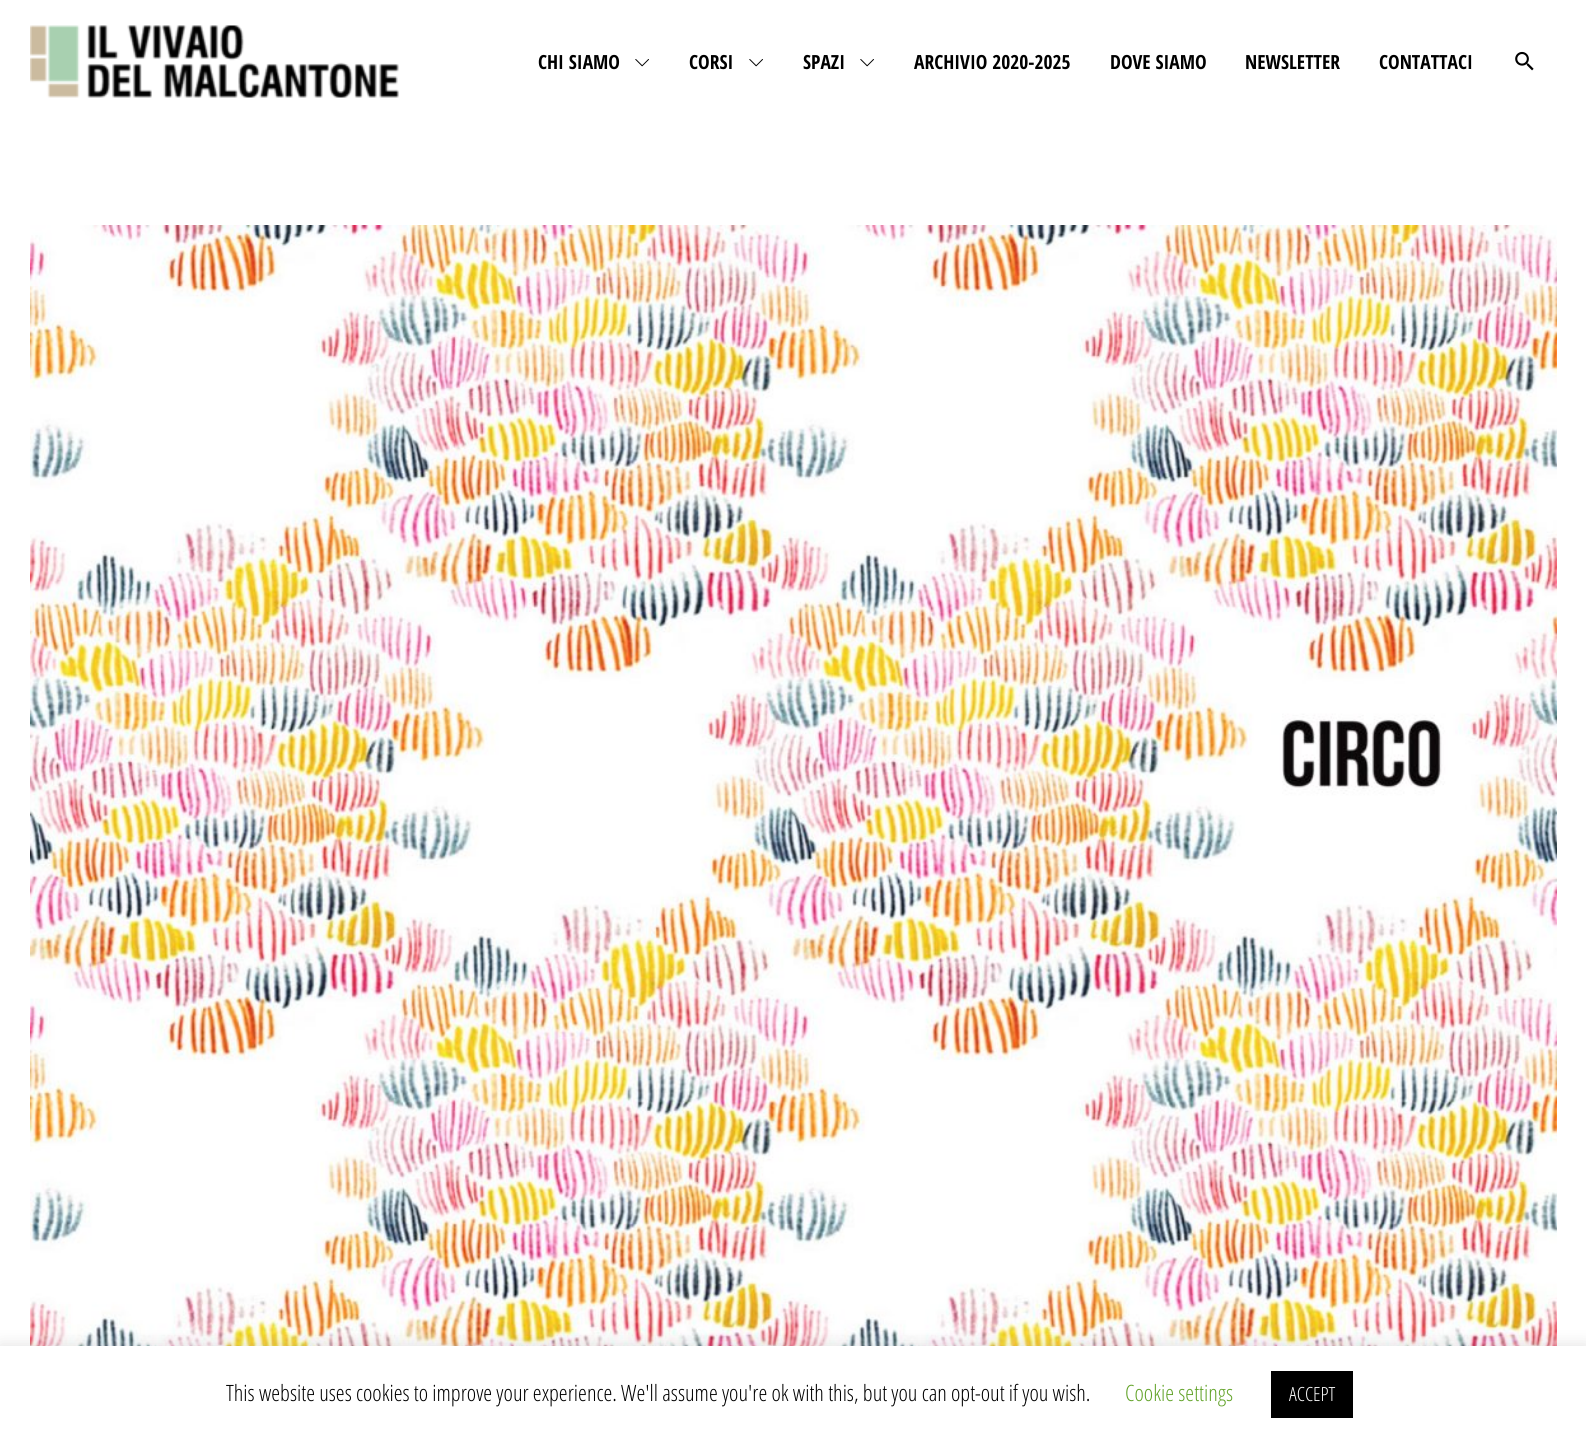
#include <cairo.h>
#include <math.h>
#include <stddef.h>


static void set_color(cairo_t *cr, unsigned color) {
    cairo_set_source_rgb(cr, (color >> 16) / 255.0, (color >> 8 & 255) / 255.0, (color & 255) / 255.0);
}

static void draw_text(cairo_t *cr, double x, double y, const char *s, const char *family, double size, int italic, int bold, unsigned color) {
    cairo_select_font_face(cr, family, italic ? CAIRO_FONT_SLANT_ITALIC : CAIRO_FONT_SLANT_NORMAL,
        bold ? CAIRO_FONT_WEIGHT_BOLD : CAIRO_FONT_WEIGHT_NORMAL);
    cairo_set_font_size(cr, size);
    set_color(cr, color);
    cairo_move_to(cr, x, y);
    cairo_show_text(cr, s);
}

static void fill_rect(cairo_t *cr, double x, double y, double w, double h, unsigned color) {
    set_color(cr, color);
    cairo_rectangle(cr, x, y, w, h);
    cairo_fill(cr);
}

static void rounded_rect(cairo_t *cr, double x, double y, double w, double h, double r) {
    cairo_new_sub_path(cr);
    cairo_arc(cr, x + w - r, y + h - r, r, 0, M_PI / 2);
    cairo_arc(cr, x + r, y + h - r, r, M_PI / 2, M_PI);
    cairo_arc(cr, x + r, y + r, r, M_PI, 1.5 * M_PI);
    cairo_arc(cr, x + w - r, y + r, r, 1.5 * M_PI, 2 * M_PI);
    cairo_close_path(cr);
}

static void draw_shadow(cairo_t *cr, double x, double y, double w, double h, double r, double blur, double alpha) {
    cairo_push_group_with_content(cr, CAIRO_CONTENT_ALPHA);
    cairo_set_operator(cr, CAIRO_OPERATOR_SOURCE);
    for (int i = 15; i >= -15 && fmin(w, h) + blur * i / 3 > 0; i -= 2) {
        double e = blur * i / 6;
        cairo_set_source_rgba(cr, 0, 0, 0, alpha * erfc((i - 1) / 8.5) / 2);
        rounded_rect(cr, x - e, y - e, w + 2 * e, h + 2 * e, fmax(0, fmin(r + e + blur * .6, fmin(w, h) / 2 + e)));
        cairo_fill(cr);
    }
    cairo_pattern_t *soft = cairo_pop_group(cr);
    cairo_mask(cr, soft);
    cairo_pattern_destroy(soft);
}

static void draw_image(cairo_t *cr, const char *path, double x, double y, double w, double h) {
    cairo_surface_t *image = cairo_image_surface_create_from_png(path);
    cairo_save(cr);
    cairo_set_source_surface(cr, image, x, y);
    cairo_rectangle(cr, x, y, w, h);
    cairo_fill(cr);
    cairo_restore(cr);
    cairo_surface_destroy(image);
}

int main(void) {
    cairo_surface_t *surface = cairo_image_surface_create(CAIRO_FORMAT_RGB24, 1586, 1443);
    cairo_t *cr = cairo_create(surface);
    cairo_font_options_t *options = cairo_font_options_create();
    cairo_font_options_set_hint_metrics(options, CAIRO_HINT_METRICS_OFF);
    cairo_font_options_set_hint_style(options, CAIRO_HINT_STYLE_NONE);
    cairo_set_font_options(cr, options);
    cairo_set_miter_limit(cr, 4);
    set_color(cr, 0xFFFFFF);
    cairo_paint(cr);
    draw_image(cr, "assets/img1.png", 30, 25, 369, 73);
    draw_text(cr, 538, 69, "CHI SIAMO", "Open Sans Condensed", 19.5, 0, 1, 0x000000);
    draw_image(cr, "assets/img2.png", 635, 59, 14, 8);
    draw_text(cr, 689, 69, "CORSI", "Open Sans Condensed", 19.5, 0, 1, 0x000000);
    draw_image(cr, "assets/img2.png", 749, 59, 14, 8);
    draw_text(cr, 803, 69, "SPAZI", "Open Sans Condensed", 19.5, 0, 1, 0x000000);
    draw_image(cr, "assets/img2.png", 860, 59, 14, 8);
    draw_text(cr, 914, 69, "ARCHIVIO 2020-2025", "Open Sans Condensed", 19.5, 0, 1, 0x000000);
    draw_text(cr, 1110, 69, "DOVE SIAMO", "Open Sans Condensed", 19.5, 0, 1, 0x000000);
    draw_text(cr, 1245, 69, "NEWSLETTER", "Open Sans Condensed", 19.5, 0, 1, 0x000000);
    draw_text(cr, 1379, 69, "CONTATTACI", "Open Sans Condensed", 19.5, 0, 1, 0x000000);
    draw_image(cr, "assets/img3.png", 1515, 51, 19, 20);
    draw_image(cr, "assets/img4.png", 30, 225, 1527, 1121);
    set_color(cr, 0xACABAB);
    draw_shadow(cr, 0, 1344, 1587, 98, 0, 7.5, 0.3);
    fill_rect(cr, 0, 1346, 1586, 97, 0xFFFFFF);
    draw_text(cr, 226, 1401, "This website uses cookies to improve your experience. We'll assume you're ok with this, but you can opt-out if you wish.", "Open Sans Condensed Light", 22.5, 0, 0, 0x000000);
    draw_text(cr, 1125, 1401, "Cookie settings", "Open Sans Condensed Light", 22.5, 0, 0, 0x62A329);
    fill_rect(cr, 1271, 1371, 82, 47, 0x000000);
    draw_text(cr, 1289, 1401, "ACCEPT", "Open Sans Condensed Light", 19.5, 0, 0, 0xFFFFFF);
    cairo_surface_write_to_png(surface, "output.png");
    cairo_font_options_destroy(options);
    cairo_destroy(cr);
    cairo_surface_destroy(surface);
    return 0;
}
